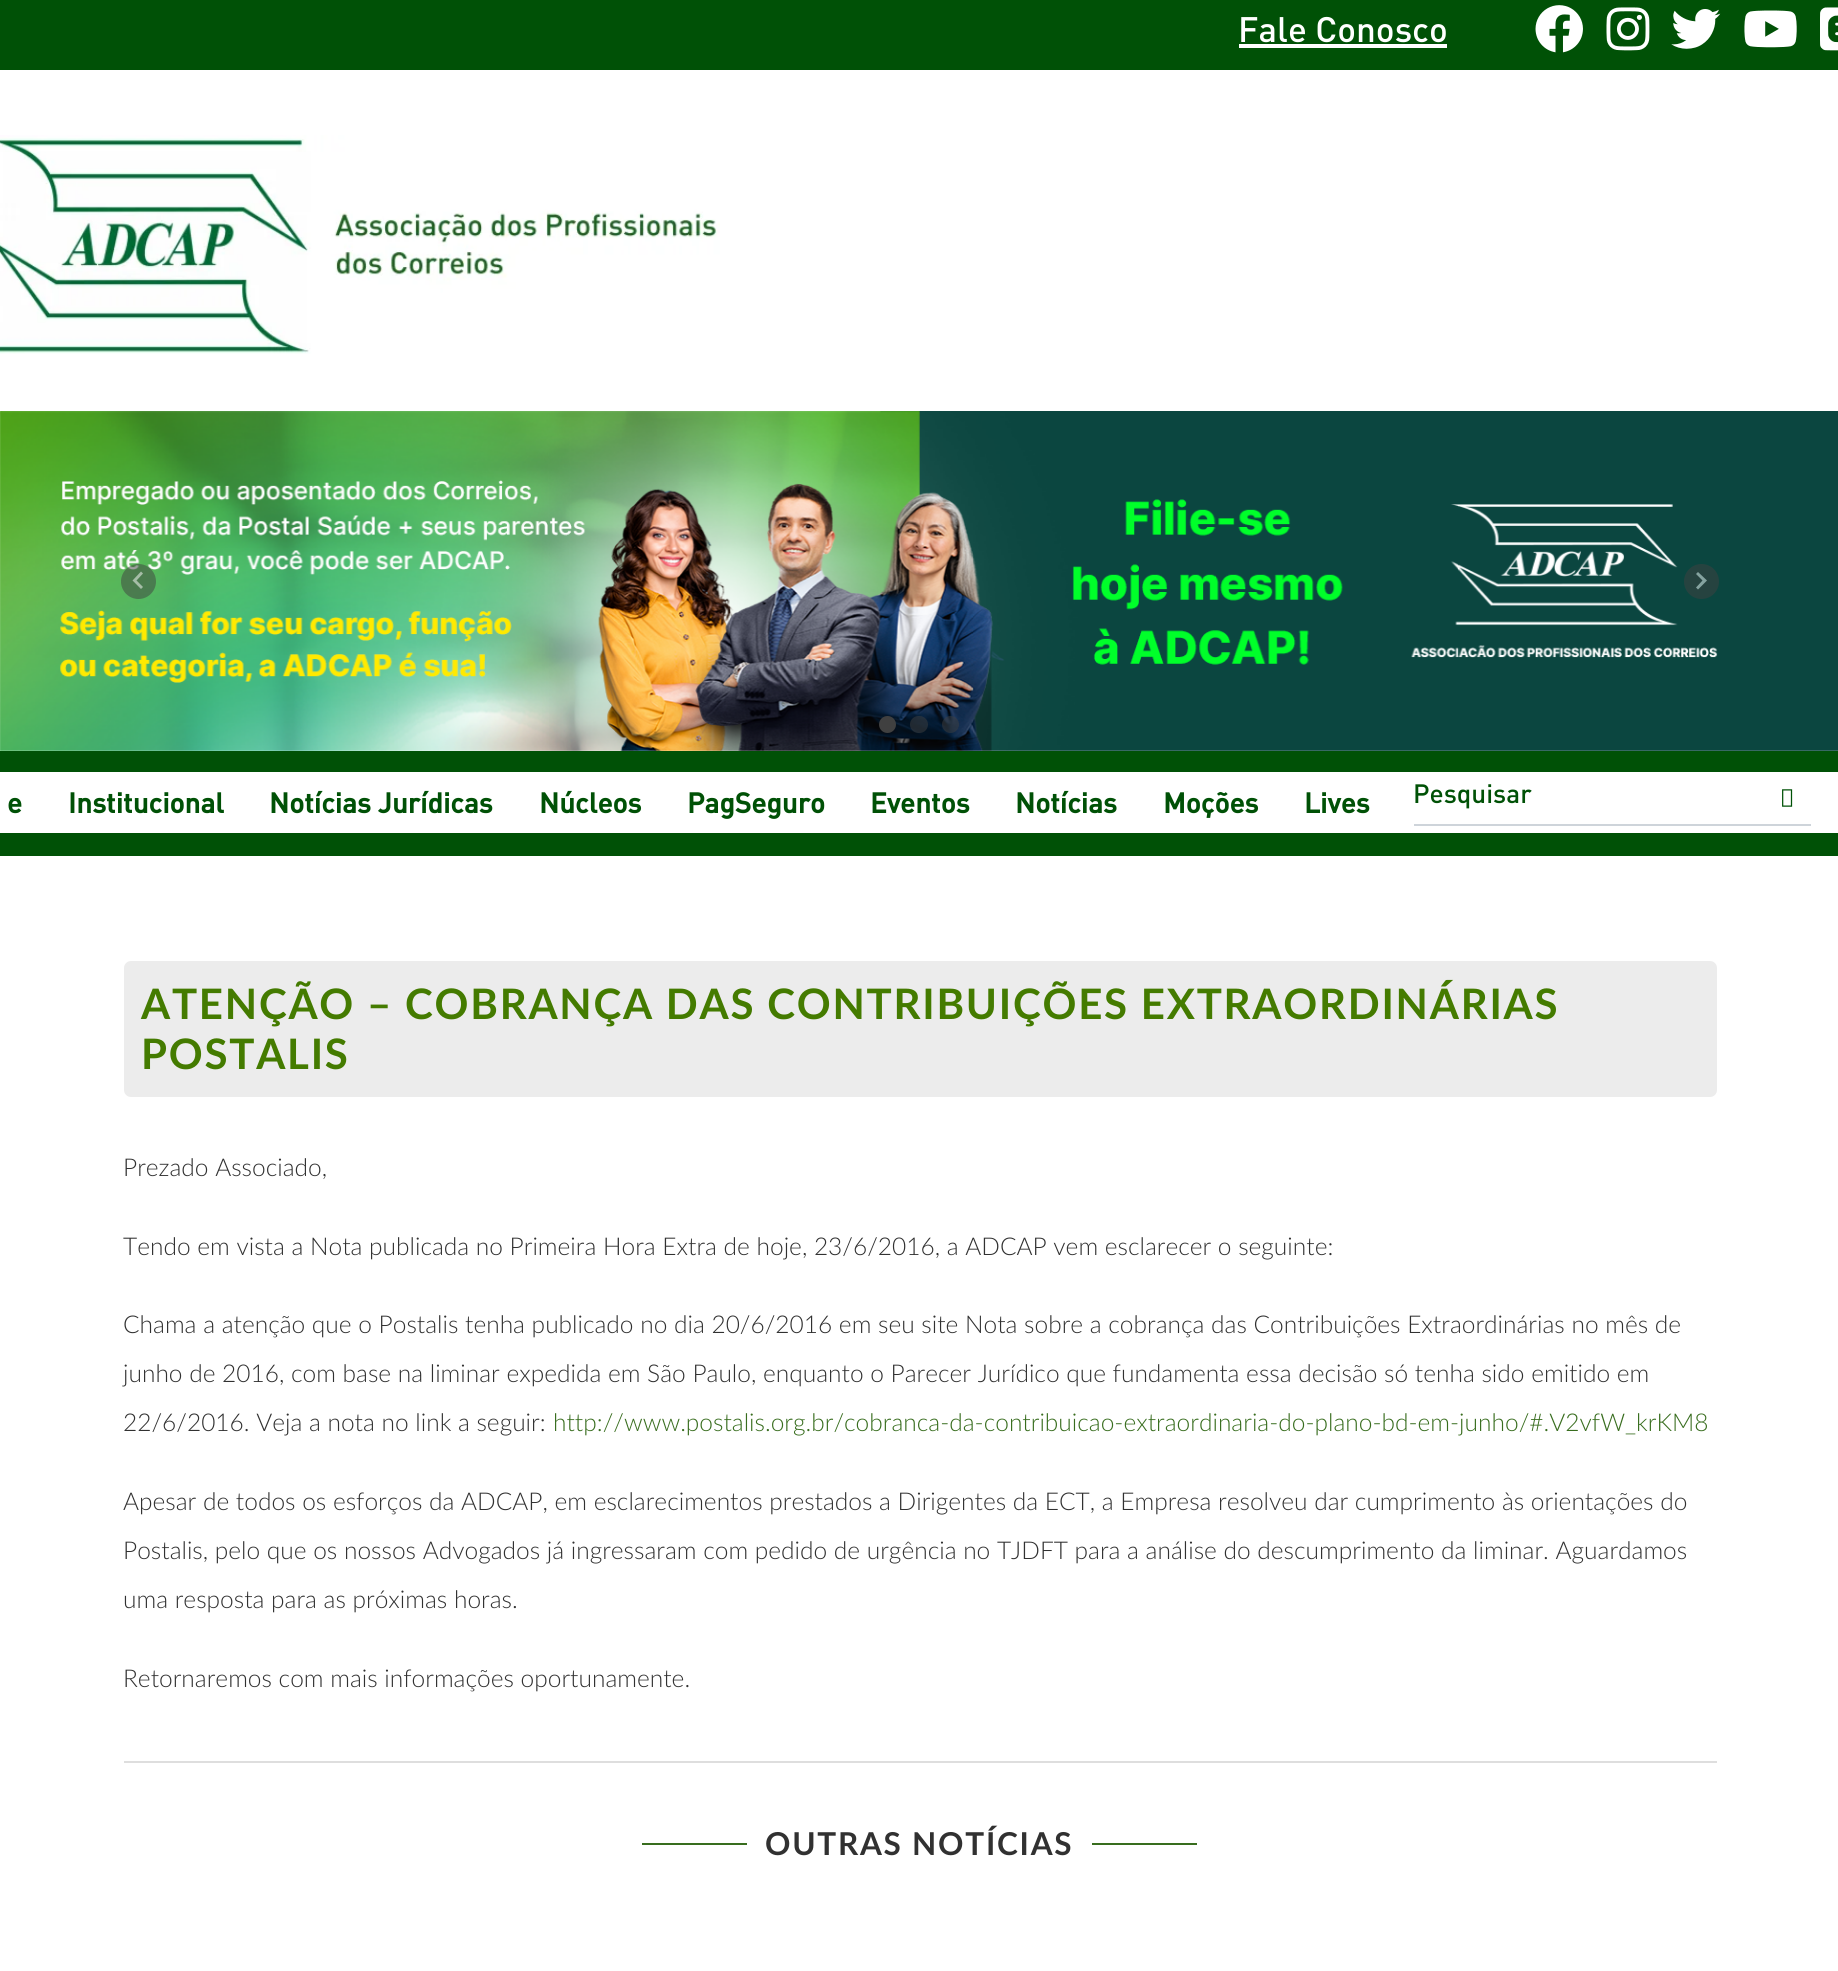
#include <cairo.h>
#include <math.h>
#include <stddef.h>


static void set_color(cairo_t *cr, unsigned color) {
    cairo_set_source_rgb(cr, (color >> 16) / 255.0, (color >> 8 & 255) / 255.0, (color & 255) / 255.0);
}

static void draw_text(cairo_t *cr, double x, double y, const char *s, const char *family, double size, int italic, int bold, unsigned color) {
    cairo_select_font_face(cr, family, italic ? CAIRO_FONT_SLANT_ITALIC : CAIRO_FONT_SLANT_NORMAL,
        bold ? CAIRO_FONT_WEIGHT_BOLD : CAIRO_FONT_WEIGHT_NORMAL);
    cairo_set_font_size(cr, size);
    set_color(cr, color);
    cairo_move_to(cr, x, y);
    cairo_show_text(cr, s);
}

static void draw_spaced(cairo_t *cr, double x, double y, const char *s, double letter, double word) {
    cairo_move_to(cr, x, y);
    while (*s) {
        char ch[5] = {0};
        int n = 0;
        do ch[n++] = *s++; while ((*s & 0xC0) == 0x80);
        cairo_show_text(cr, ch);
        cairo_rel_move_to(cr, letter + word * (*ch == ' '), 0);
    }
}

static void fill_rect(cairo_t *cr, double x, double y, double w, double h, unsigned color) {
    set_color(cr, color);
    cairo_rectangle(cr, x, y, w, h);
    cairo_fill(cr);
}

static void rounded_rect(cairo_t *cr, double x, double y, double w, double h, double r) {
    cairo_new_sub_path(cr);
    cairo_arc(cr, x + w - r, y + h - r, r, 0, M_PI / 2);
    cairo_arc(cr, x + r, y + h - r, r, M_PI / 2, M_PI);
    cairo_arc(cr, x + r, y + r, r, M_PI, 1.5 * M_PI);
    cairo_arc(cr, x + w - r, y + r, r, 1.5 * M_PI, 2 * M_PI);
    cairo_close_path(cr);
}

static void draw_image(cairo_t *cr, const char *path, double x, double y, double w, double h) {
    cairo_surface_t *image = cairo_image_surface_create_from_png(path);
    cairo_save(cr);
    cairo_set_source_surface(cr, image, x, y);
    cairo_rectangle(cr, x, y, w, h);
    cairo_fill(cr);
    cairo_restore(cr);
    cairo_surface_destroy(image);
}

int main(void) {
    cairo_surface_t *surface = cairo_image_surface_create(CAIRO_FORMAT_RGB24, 1838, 1971);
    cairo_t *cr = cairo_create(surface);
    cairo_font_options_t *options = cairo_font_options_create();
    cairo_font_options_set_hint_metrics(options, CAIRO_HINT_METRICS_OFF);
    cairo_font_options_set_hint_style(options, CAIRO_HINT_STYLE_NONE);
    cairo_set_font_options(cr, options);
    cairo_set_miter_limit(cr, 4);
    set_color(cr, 0xFFFFFF);
    cairo_paint(cr);
    fill_rect(cr, 0, 0, 1838, 70, 0x005106);
    draw_text(cr, 1238, 42, "Fale Conosco", "DIN Medium", 35, 0, 0, 0xFFFFFF);
    fill_rect(cr, 1239, 44, 208, 4, 0xFFFFFF);
    draw_image(cr, "assets/img1.png", 1535, 5, 48, 48);
    draw_image(cr, "assets/img2.png", 1606, 7, 44, 44);
    draw_image(cr, "assets/img3.png", 1671, 9, 50, 40);
    draw_image(cr, "assets/img4.png", 1744, 10, 53, 38);
    draw_image(cr, "assets/img5.png", 1820, 7, 18, 44);
    draw_image(cr, "assets/img6.png", 0, 135, 720, 219);
    draw_image(cr, "assets/img7.png", 0, 411, 1838, 340);
    cairo_set_source_rgba(cr, 0.251, 0.251, 0.251, 0.5);
    cairo_arc(cr, 138.5, 581.5, 17.5, 0, 2 * M_PI);
    cairo_fill(cr);
    set_color(cr, 0xA5BDA7);
    cairo_new_path(cr);
    cairo_move_to(cr, 143, 587);
    cairo_line_to(cr, 136.5, 580.5);
    cairo_line_to(cr, 143, 573.5);
    cairo_line_to(cr, 141, 571.5);
    cairo_line_to(cr, 132.5, 580.5);
    cairo_line_to(cr, 141, 589);
    cairo_close_path(cr);
    cairo_fill(cr);
    set_color(cr, 0x264340);
    cairo_arc(cr, 1701.5, 581.5, 17.5, 0, 2 * M_PI);
    cairo_fill(cr);
    set_color(cr, 0x85A3A0);
    cairo_new_path(cr);
    cairo_move_to(cr, 1696, 587.5);
    cairo_line_to(cr, 1702.5, 580.5);
    cairo_line_to(cr, 1696, 574);
    cairo_line_to(cr, 1698, 572);
    cairo_line_to(cr, 1707, 580.5);
    cairo_line_to(cr, 1698, 589.5);
    cairo_close_path(cr);
    cairo_fill(cr);
    set_color(cr, 0x404040);
    cairo_arc(cr, 887.5, 724.5, 8.5, 0, 2 * M_PI);
    cairo_fill(cr);
    cairo_set_source_rgba(cr, 0.251, 0.251, 0.251, 0.5);
    rounded_rect(cr, 910, 716, 18, 17, 8.5);
    cairo_fill(cr);
    cairo_arc(cr, 950.5, 724.5, 8.5, 0, 2 * M_PI);
    cairo_fill(cr);
    fill_rect(cr, 0, 751, 1838, 21, 0x005106);
    fill_rect(cr, 0, 833, 1838, 23, 0x005106);
    draw_text(cr, 7, 813, "e", "DIN", 28, 0, 1, 0x005106);
    draw_text(cr, 68, 813, "Institucional", "DIN", 28, 0, 1, 0x005106);
    draw_text(cr, 269, 813, "Notícias Jurídicas", "DIN", 28, 0, 1, 0x005106);
    draw_text(cr, 539, 813, "Núcleos", "DIN", 28, 0, 1, 0x005106);
    draw_text(cr, 687, 813, "PagSeguro", "DIN", 28, 0, 1, 0x005106);
    draw_text(cr, 870, 813, "Eventos", "DIN", 28, 0, 1, 0x005106);
    draw_text(cr, 1015, 813, "Notícias", "DIN", 28, 0, 1, 0x005106);
    draw_text(cr, 1163, 813, "Moções", "DIN", 28, 0, 1, 0x005106);
    draw_text(cr, 1304, 813, "Lives", "DIN", 28, 0, 1, 0x005106);
    fill_rect(cr, 1414, 824, 397, 2, 0xCED4DA);
    draw_text(cr, 1413, 803, "Pesquisar", "DIN Medium", 26.25, 0, 0, 0x005106);
    draw_image(cr, "assets/img8.png", 1782, 789, 11, 18);
    set_color(cr, 0xECECEC);
    rounded_rect(cr, 124, 961, 1593, 136, 7);
    cairo_fill(cr);
    cairo_select_font_face(cr, "Lato", CAIRO_FONT_SLANT_NORMAL, CAIRO_FONT_WEIGHT_BOLD);
    cairo_set_font_size(cr, 42);
    set_color(cr, 0x447B00);
    draw_spaced(cr, 141, 1019, "ATENÇÃO – COBRANÇA DAS CONTRIBUIÇÕES EXTRAORDINÁRIAS", 1.75, 0);
    draw_spaced(cr, 141, 1069, "POSTALIS", 1.75, 0);
    draw_text(cr, 123, 1176, "Prezado Associado,", "Lato Light", 24.5, 0, 0, 0x313131);
    draw_text(cr, 123, 1255, "Tendo em vista a Nota publicada no Primeira Hora Extra de hoje, 23/6/2016, a ADCAP vem esclarecer o seguinte:", "Lato Light", 24.5, 0, 0, 0x313131);
    draw_text(cr, 123, 1333, "Chama a atenção que o Postalis tenha publicado no dia 20/6/2016 em seu site Nota sobre a cobrança das Contribuições Extraordinárias no mês de", "Lato Light", 24.5, 0, 0, 0x313131);
    draw_text(cr, 123, 1382, "junho de 2016, com base na liminar expedida em São Paulo, enquanto o Parecer Jurídico que fundamenta essa decisão só tenha sido emitido em", "Lato Light", 24.5, 0, 0, 0x313131);
    draw_text(cr, 123, 1431, "22/6/2016. Veja a nota no link a seguir:", "Lato Light", 24.5, 0, 0, 0x313131);
    draw_text(cr, 553, 1431, "http://www.postalis.org.br/cobranca-da-contribuicao-extraordinaria-do-plano-bd-em-junho/#.V2vfW_krKM8", "Lato Light", 24.5, 0, 0, 0x386D1E);
    draw_text(cr, 123, 1510, "Apesar de todos os esforços da ADCAP, em esclarecimentos prestados a Dirigentes da ECT, a Empresa resolveu dar cumprimento às orientações do", "Lato Light", 24.5, 0, 0, 0x313131);
    draw_text(cr, 123, 1559, "Postalis, pelo que os nossos Advogados já ingressaram com pedido de urgência no TJDFT para a análise do descumprimento da liminar. Aguardamos", "Lato Light", 24.5, 0, 0, 0x313131);
    draw_text(cr, 123, 1608, "uma resposta para as próximas horas.", "Lato Light", 24.5, 0, 0, 0x313131);
    draw_text(cr, 123, 1687, "Retornaremos com mais informações oportunamente.", "Lato Light", 24.5, 0, 0, 0x313131);
    fill_rect(cr, 124, 1761, 1593, 2, 0xDEDEDE);
    fill_rect(cr, 642, 1843, 105, 2, 0x386D1E);
    cairo_select_font_face(cr, "Lato", CAIRO_FONT_SLANT_NORMAL, CAIRO_FONT_WEIGHT_BOLD);
    cairo_set_font_size(cr, 31.5);
    set_color(cr, 0x313131);
    draw_spaced(cr, 765, 1855, "OUTRAS NOTÍCIAS", 1.75, 0);
    fill_rect(cr, 1092, 1843, 105, 2, 0x386D1E);
    cairo_surface_write_to_png(surface, "output.png");
    cairo_font_options_destroy(options);
    cairo_destroy(cr);
    cairo_surface_destroy(surface);
    return 0;
}
